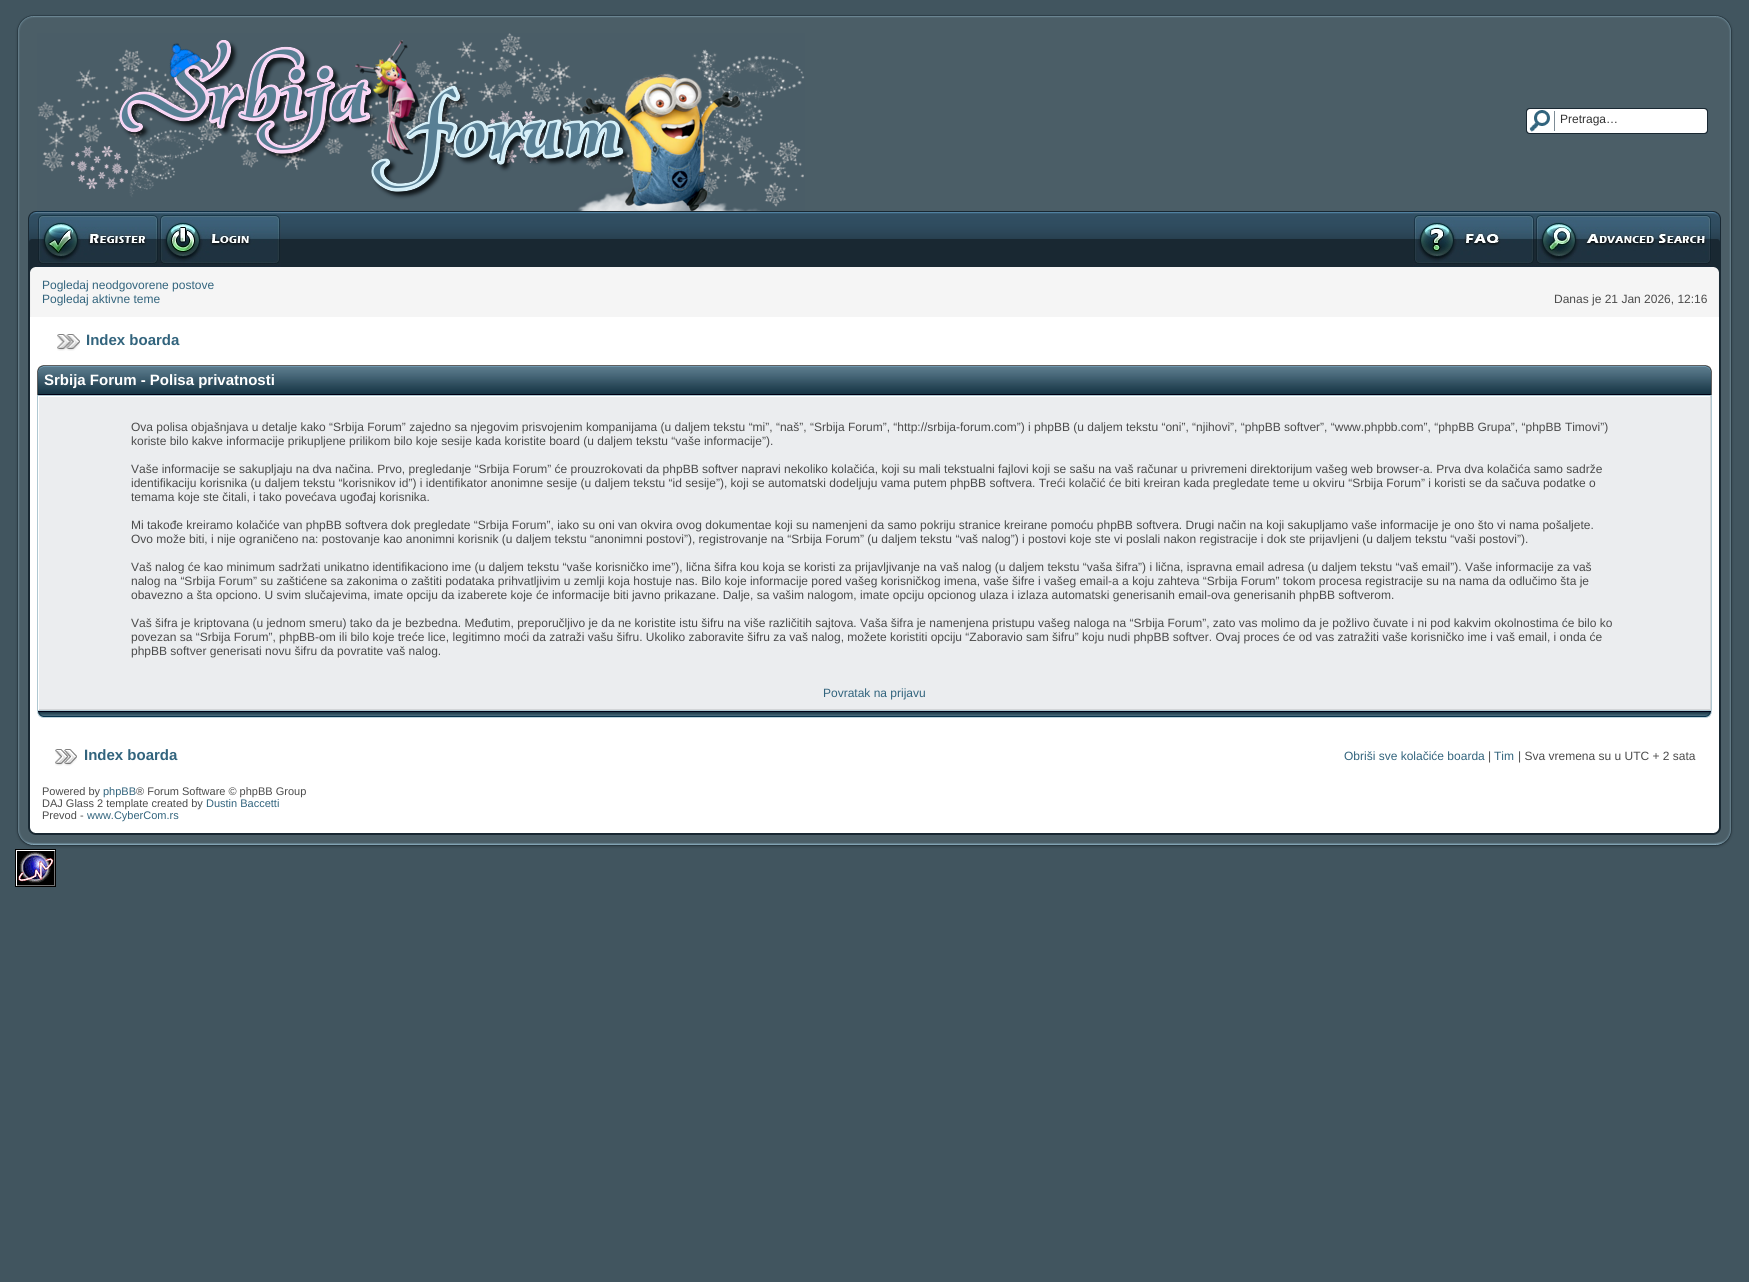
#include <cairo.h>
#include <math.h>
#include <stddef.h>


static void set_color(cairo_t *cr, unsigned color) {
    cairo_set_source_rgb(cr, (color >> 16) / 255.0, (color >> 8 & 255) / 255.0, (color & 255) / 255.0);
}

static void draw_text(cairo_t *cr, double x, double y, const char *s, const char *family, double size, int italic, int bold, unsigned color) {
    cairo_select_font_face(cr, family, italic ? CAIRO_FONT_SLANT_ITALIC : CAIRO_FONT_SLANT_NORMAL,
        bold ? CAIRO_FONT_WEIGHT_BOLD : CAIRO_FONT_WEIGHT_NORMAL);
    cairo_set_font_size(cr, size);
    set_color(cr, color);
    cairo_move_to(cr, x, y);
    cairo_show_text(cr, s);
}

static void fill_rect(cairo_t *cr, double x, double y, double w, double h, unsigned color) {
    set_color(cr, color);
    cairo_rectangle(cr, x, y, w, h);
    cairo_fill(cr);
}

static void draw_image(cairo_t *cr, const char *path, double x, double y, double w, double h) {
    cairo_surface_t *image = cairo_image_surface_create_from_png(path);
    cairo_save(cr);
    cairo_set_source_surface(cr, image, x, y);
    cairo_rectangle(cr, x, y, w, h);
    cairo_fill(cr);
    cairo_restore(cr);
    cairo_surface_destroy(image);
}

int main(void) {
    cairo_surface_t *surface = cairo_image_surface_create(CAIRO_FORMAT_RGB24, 1749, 1282);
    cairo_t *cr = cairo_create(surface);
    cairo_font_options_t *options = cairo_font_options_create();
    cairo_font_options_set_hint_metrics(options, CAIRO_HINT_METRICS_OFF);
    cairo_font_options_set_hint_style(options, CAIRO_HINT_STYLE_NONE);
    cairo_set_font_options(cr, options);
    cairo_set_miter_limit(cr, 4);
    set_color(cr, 0x41555F);
    cairo_paint(cr);
    fill_rect(cr, 20, 18, 1709, 193, 0x4B5E67);
    draw_image(cr, "assets/img1.png", 15, 14, 22, 17);
    draw_image(cr, "assets/img2.png", 37, 14, 1675, 4);
    draw_image(cr, "assets/img3.png", 1712, 14, 22, 17);
    draw_image(cr, "assets/img4.png", 15, 31, 5, 180);
    draw_image(cr, "assets/img5.png", 37, 33, 768, 178);
    draw_image(cr, "assets/img6.png", 1526, 108, 182, 26);
    draw_text(cr, 1560, 123, "Pretraga…", "Liberation Sans", 12, 0, 0, 0x323232);
    draw_image(cr, "assets/img7.png", 1729, 31, 5, 180);
    draw_image(cr, "assets/img8.png", 15, 211, 22, 56);
    draw_image(cr, "assets/img9.png", 281, 211, 1132, 56);
    draw_image(cr, "assets/img10.png", 37, 211, 122, 56);
    draw_image(cr, "assets/img11.png", 159, 211, 122, 56);
    draw_image(cr, "assets/img12.png", 1413, 211, 122, 56);
    draw_image(cr, "assets/img13.png", 1535, 211, 177, 56);
    draw_image(cr, "assets/img14.png", 1712, 211, 22, 56);
    fill_rect(cr, 36, 267, 1677, 6, 0xF5F5F5);
    draw_image(cr, "assets/img15.png", 15, 267, 21, 6);
    draw_image(cr, "assets/img16.png", 1713, 267, 21, 6);
    fill_rect(cr, 31, 273, 1687, 44, 0xF5F5F5);
    draw_image(cr, "assets/img17.png", 15, 273, 16, 44);
    draw_image(cr, "assets/img18.png", 1718, 273, 16, 44);
    draw_text(cr, 42, 289, "Pogledaj neodgovorene postove", "Liberation Sans", 12, 0, 0, 0x32647D);
    draw_text(cr, 42, 303, "Pogledaj aktivne teme", "Liberation Sans", 12, 0, 0, 0x32647D);
    draw_text(cr, 1554, 303, "Danas je 21 Jan 2026, 12:16", "Liberation Sans", 12, 0, 0, 0x4B4B4B);
    draw_image(cr, "assets/img19.png", 15, 317, 22, 509);
    fill_rect(cr, 37, 317, 1675, 509, 0xFFFFFF);
    draw_image(cr, "assets/img20.png", 57, 334, 23, 17);
    draw_text(cr, 86, 345, "Index boarda", "Liberation Sans", 15, 0, 1, 0x32647D);
    draw_image(cr, "assets/img21.png", 43, 365, 1663, 30);
    draw_image(cr, "assets/img22.png", 37, 365, 6, 30);
    draw_image(cr, "assets/img23.png", 1706, 365, 6, 30);
    draw_text(cr, 44, 385, "Srbija Forum - Polisa privatnosti", "Liberation Sans", 15, 0, 1, 0xFFFFFF);
    cairo_rectangle(cr, 37.5, 395.5, 1674, 315);
    set_color(cr, 0xAFC8D2);
    cairo_set_line_width(cr, 1);
    cairo_stroke(cr);
    fill_rect(cr, 39, 397, 1671, 312, 0xEBEDEF);
    fill_rect(cr, 1710, 396, 1, 314, 0xD3D5D7);
    fill_rect(cr, 38, 709, 1673, 1, 0xD3D5D7);
    fill_rect(cr, 38, 709, 1, 1, 0xFFFFFF);
    draw_text(cr, 131, 431, "Ova polisa objašnjava u detalje kako “Srbija Forum” zajedno sa njegovim prisvojenim kompanijama (u daljem tekstu “mi”, “naš”, “Srbija Forum”, “http://srbija-forum.com”) i phpBB (u daljem tekstu “oni”, “njihovi”, “phpBB softver”, “www.phpbb.com”, “phpBB Grupa”, “phpBB Timovi”)", "Liberation Sans", 12, 0, 0, 0x4B4B4B);
    draw_text(cr, 131, 445, "koriste bilo kakve informacije prikupljene prilikom bilo koje sesije kada koristite board (u daljem tekstu “vaše informacije”).", "Liberation Sans", 12, 0, 0, 0x4B4B4B);
    draw_text(cr, 131, 473, "Vaše informacije se sakupljaju na dva načina. Prvo, pregledanje “Srbija Forum” će prouzrokovati da phpBB softver napravi nekoliko kolačića, koji su mali tekstualni fajlovi koji se sašu na vaš računar u privremeni direktorijum vašeg web browser-a. Prva dva kolačića samo sadrže", "Liberation Sans", 12, 0, 0, 0x4B4B4B);
    draw_text(cr, 131, 487, "identifikaciju korisnika (u daljem tekstu “korisnikov id”) i identifikator anonimne sesije (u daljem tekstu “id sesije”), koji se automatski dodeljuju vama putem phpBB softvera. Treći kolačić će biti kreiran kada pregledate teme u okviru “Srbija Forum” i koristi se da sačuva podatke o", "Liberation Sans", 12, 0, 0, 0x4B4B4B);
    draw_text(cr, 131, 501, "temama koje ste čitali, i tako povećava ugođaj korisnika.", "Liberation Sans", 12, 0, 0, 0x4B4B4B);
    draw_text(cr, 131, 529, "Mi takođe kreiramo kolačiće van phpBB softvera dok pregledate “Srbija Forum”, iako su oni van okvira ovog dokumentae koji su namenjeni da samo pokriju stranice kreirane pomoću phpBB softvera. Drugi način na koji sakupljamo vaše informacije je ono što vi nama pošaljete.", "Liberation Sans", 12, 0, 0, 0x4B4B4B);
    draw_text(cr, 131, 543, "Ovo može biti, i nije ograničeno na: postovanje kao anonimni korisnik (u daljem tekstu “anonimni postovi”), registrovanje na “Srbija Forum” (u daljem tekstu “vaš nalog”) i postovi koje ste vi poslali nakon registracije i dok ste prijavljeni (u daljem tekstu “vaši postovi”).", "Liberation Sans", 12, 0, 0, 0x4B4B4B);
    draw_text(cr, 131, 571, "Vaš nalog će kao minimum sadržati unikatno identifikaciono ime (u daljem tekstu “vaše korisničko ime”), lična šifra kou koja se koristi za prijavljivanje na vaš nalog (u daljem tekstu “vaša šifra”) i lična, ispravna email adresa (u daljem tekstu “vaš email”). Vaše informacije za vaš", "Liberation Sans", 12, 0, 0, 0x4B4B4B);
    draw_text(cr, 131, 585, "nalog na “Srbija Forum” su zaštićene sa zakonima o zaštiti podataka prihvatljivim u zemlji koja hostuje nas. Bilo koje informacije pored vašeg korisničkog imena, vaše šifre i vašeg email-a a koju zahteva “Srbija Forum” tokom procesa registracije su na nama da odlučimo šta je", "Liberation Sans", 12, 0, 0, 0x4B4B4B);
    draw_text(cr, 131, 599, "obavezno a šta opciono. U svim slučajevima, imate opciju da izaberete koje će informacije biti javno prikazane. Dalje, sa vašim nalogom, imate opciju opcionog ulaza i izlaza automatski generisanih email-ova generisanih phpBB softverom.", "Liberation Sans", 12, 0, 0, 0x4B4B4B);
    draw_text(cr, 131, 627, "Vaš šifra je kriptovana (u jednom smeru) tako da je bezbedna. Međutim, preporučljivo je da ne koristite istu šifru na više različitih sajtova. Vaša šifra je namenjena pristupu vašeg naloga na “Srbija Forum”, zato vas molimo da je požlivo čuvate i ni pod kakvim okolnostima će bilo ko", "Liberation Sans", 12, 0, 0, 0x4B4B4B);
    draw_text(cr, 131, 641, "povezan sa “Srbija Forum”, phpBB-om ili bilo koje treće lice, legitimno moći da zatraži vašu šifru. Ukoliko zaboravite šifru za vaš nalog, možete koristiti opciju “Zaboravio sam šifru” koju nudi phpBB softver. Ovaj proces će od vas zatražiti vaše korisničko ime i vaš email, i onda će", "Liberation Sans", 12, 0, 0, 0x4B4B4B);
    draw_text(cr, 131, 655, "phpBB softver generisati novu šifru da povratite vaš nalog.", "Liberation Sans", 12, 0, 0, 0x4B4B4B);
    draw_text(cr, 823, 697, "Povratak na prijavu", "Liberation Sans", 12, 0, 0, 0x32647D);
    draw_image(cr, "assets/img24.png", 44, 711, 1661, 7);
    draw_image(cr, "assets/img25.png", 37, 711, 7, 7);
    draw_image(cr, "assets/img26.png", 1705, 711, 7, 7);
    draw_image(cr, "assets/img27.png", 55, 749, 22, 17);
    draw_text(cr, 84, 760, "Index boarda", "Liberation Sans", 15, 0, 1, 0x32647D);
    draw_text(cr, 1344, 760, "Obriši sve kolačiće boarda", "Liberation Sans", 12, 0, 0, 0x32647D);
    draw_text(cr, 1488, 760, "|", "Liberation Sans", 12, 0, 0, 0x4B4B4B);
    draw_text(cr, 1494, 760, "Tim", "Liberation Sans", 12, 0, 0, 0x32647D);
    draw_text(cr, 1518, 760, "| Sva vremena su u UTC + 2 sata", "Liberation Sans", 12, 0, 0, 0x4B4B4B);
    draw_text(cr, 42, 795, "Powered by", "Liberation Sans", 11, 0, 0, 0x4B4B4B);
    draw_text(cr, 103, 795, "phpBB", "Liberation Sans", 11, 0, 0, 0x32647D);
    draw_text(cr, 136, 795, "® Forum Software © phpBB Group", "Liberation Sans", 11, 0, 0, 0x4B4B4B);
    draw_text(cr, 42, 807, "DAJ Glass 2 template created by", "Liberation Sans", 11, 0, 0, 0x4B4B4B);
    draw_text(cr, 206, 807, "Dustin Baccetti", "Liberation Sans", 11, 0, 0, 0x32647D);
    draw_text(cr, 42, 819, "Prevod -", "Liberation Sans", 11, 0, 0, 0x4B4B4B);
    draw_text(cr, 87, 819, "www.CyberCom.rs", "Liberation Sans", 11, 0, 0, 0x32647D);
    draw_image(cr, "assets/img28.png", 1712, 317, 22, 509);
    draw_image(cr, "assets/img29.png", 15, 826, 22, 23);
    draw_image(cr, "assets/img30.png", 37, 826, 1675, 23);
    draw_image(cr, "assets/img31.png", 1712, 826, 22, 23);
    draw_image(cr, "assets/img32.png", 15, 849, 41, 38);
    cairo_surface_write_to_png(surface, "output.png");
    cairo_font_options_destroy(options);
    cairo_destroy(cr);
    cairo_surface_destroy(surface);
    return 0;
}
